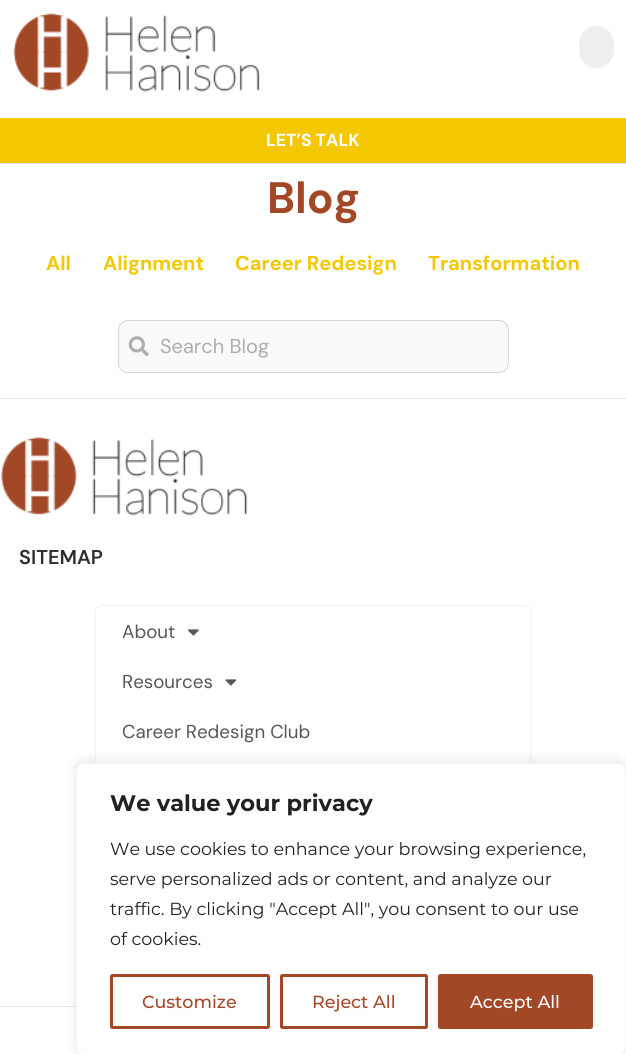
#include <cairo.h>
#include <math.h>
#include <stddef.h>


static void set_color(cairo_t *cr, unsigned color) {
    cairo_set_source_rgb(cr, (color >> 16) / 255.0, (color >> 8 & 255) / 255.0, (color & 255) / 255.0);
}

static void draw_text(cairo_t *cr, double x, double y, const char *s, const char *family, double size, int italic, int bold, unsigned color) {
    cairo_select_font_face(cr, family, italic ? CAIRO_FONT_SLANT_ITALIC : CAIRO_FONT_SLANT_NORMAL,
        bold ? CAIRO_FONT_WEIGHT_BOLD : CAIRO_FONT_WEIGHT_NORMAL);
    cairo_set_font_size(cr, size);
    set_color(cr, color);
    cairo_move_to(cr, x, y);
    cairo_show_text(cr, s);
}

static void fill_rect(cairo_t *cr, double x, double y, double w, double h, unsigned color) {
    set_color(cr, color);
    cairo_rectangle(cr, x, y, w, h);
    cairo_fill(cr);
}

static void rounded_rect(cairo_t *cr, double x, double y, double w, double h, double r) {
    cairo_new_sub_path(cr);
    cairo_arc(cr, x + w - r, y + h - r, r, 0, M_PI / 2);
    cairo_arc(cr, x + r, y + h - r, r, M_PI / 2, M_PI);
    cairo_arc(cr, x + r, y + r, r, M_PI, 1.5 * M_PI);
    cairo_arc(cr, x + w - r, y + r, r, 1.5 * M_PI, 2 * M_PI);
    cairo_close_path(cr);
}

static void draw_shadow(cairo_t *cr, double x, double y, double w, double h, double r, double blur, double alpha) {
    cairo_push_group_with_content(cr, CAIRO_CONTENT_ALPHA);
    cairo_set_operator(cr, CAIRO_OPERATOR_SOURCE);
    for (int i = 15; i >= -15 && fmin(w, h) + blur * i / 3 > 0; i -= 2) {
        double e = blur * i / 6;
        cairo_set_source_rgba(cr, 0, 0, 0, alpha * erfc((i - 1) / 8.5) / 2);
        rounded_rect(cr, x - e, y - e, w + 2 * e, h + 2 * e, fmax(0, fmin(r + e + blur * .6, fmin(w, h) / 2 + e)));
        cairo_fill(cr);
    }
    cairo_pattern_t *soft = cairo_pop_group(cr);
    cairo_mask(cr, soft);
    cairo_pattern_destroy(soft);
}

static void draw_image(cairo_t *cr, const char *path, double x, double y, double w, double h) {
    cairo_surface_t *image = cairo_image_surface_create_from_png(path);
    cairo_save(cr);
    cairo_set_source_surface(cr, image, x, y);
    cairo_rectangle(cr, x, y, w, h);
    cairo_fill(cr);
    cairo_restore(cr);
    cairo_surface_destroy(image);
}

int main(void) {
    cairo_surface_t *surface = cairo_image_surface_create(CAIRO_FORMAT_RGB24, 626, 1054);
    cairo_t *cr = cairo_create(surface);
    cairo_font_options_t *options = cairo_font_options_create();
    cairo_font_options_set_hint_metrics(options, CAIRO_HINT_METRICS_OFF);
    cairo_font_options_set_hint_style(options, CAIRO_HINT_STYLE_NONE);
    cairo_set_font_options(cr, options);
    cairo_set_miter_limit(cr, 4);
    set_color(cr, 0xFFFFFF);
    cairo_paint(cr);
    fill_rect(cr, 0, 163, 626, 1, 0xDEDEDE);
    draw_image(cr, "assets/img1.png", 13, 13, 247, 79);
    set_color(cr, 0xEEEEEE);
    rounded_rect(cr, 579, 26, 35, 42, 17.5);
    cairo_fill(cr);
    fill_rect(cr, 0, 118, 626, 45, 0xF3C800);
    draw_text(cr, 266, 146, "LET’S TALK", "DM Sans", 17.5, 0, 1, 0xFFFFFF);
    draw_text(cr, 267, 213, "Blog", "DM Sans", 44, 0, 1, 0xA34827);
    draw_text(cr, 46, 270, "All", "DM Sans", 20, 0, 1, 0xF3C800);
    draw_text(cr, 103, 270, "Alignment", "DM Sans", 20, 0, 1, 0xF3C800);
    draw_text(cr, 235, 270, "Career Redesign", "DM Sans", 20, 0, 1, 0xF3C800);
    draw_text(cr, 428, 270, "Transformation", "DM Sans", 20, 0, 1, 0xF3C800);
    set_color(cr, 0xF9F9F9);
    rounded_rect(cr, 118.5, 320.5, 390, 52, 9.5);
    cairo_fill_preserve(cr);
    set_color(cr, 0xD0D5DD);
    cairo_set_line_width(cr, 1);
    cairo_stroke(cr);
    draw_image(cr, "assets/img2.png", 128, 336, 21, 21);
    draw_text(cr, 160, 353, "Search Blog", "DM Sans", 20, 0, 0, 0xADADAD);
    fill_rect(cr, 0, 398, 626, 1, 0xEDE6E2);
    fill_rect(cr, 0, 1006, 76, 1, 0xEDE6E2);
    draw_image(cr, "assets/img3.png", 1, 437, 247, 79);
    draw_text(cr, 19, 564, "SITEMAP", "DM Sans SemiBold", 20, 0, 0, 0x2D2D2D);
    rounded_rect(cr, 95.5, 605.5, 435, 252, 5.5);
    set_color(cr, 0xF2F2F2);
    cairo_stroke(cr);
    draw_text(cr, 122, 638, "About", "DM Sans", 18.75, 0, 0, 0x575757);
    draw_image(cr, "assets/img4.png", 188, 629, 11, 7);
    draw_text(cr, 122, 688, "Resources", "DM Sans", 18.75, 0, 0, 0x575757);
    draw_image(cr, "assets/img5.png", 225, 679, 12, 7);
    draw_text(cr, 122, 738, "Career Redesign Club", "DM Sans", 18.75, 0, 0, 0x575757);
    set_color(cr, 0xACABAB);
    draw_shadow(cr, 76, 761, 550, 293, 8, 6, 0.3);
    set_color(cr, 0xFFFFFF);
    rounded_rect(cr, 76.5, 763.5, 549, 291, 7.5);
    cairo_fill_preserve(cr);
    set_color(cr, 0xF4F4F4);
    cairo_stroke(cr);
    draw_text(cr, 110, 811, "We value your privacy", "Montserrat", 22.5, 0, 1, 0x212121);
    draw_text(cr, 110, 855, "We use cookies to enhance your browsing experience,", "Montserrat", 17.5, 0, 0, 0x212121);
    draw_text(cr, 110, 885, "serve personalized ads or content, and analyze our", "Montserrat", 17.5, 0, 0, 0x212121);
    draw_text(cr, 110, 915, "traffic. By clicking \"Accept All\", you consent to our use", "Montserrat", 17.5, 0, 0, 0x212121);
    draw_text(cr, 110, 945, "of cookies.", "Montserrat", 17.5, 0, 0, 0x212121);
    rounded_rect(cr, 111.5, 975.5, 157, 52, 1);
    set_color(cr, 0xA34827);
    cairo_set_line_width(cr, 3);
    cairo_stroke(cr);
    draw_text(cr, 142, 1008, "Customize", "Montserrat Medium", 17.5, 0, 0, 0xA34827);
    rounded_rect(cr, 281.5, 975.5, 145, 52, 1);
    cairo_stroke(cr);
    draw_text(cr, 312, 1008, "Reject All", "Montserrat Medium", 17.5, 0, 0, 0xA34827);
    rounded_rect(cr, 439.5, 975.5, 152, 52, 1);
    cairo_fill_preserve(cr);
    cairo_stroke(cr);
    draw_text(cr, 470, 1008, "Accept All", "Montserrat Medium", 17.5, 0, 0, 0xFFFFFF);
    cairo_surface_write_to_png(surface, "output.png");
    cairo_font_options_destroy(options);
    cairo_destroy(cr);
    cairo_surface_destroy(surface);
    return 0;
}
